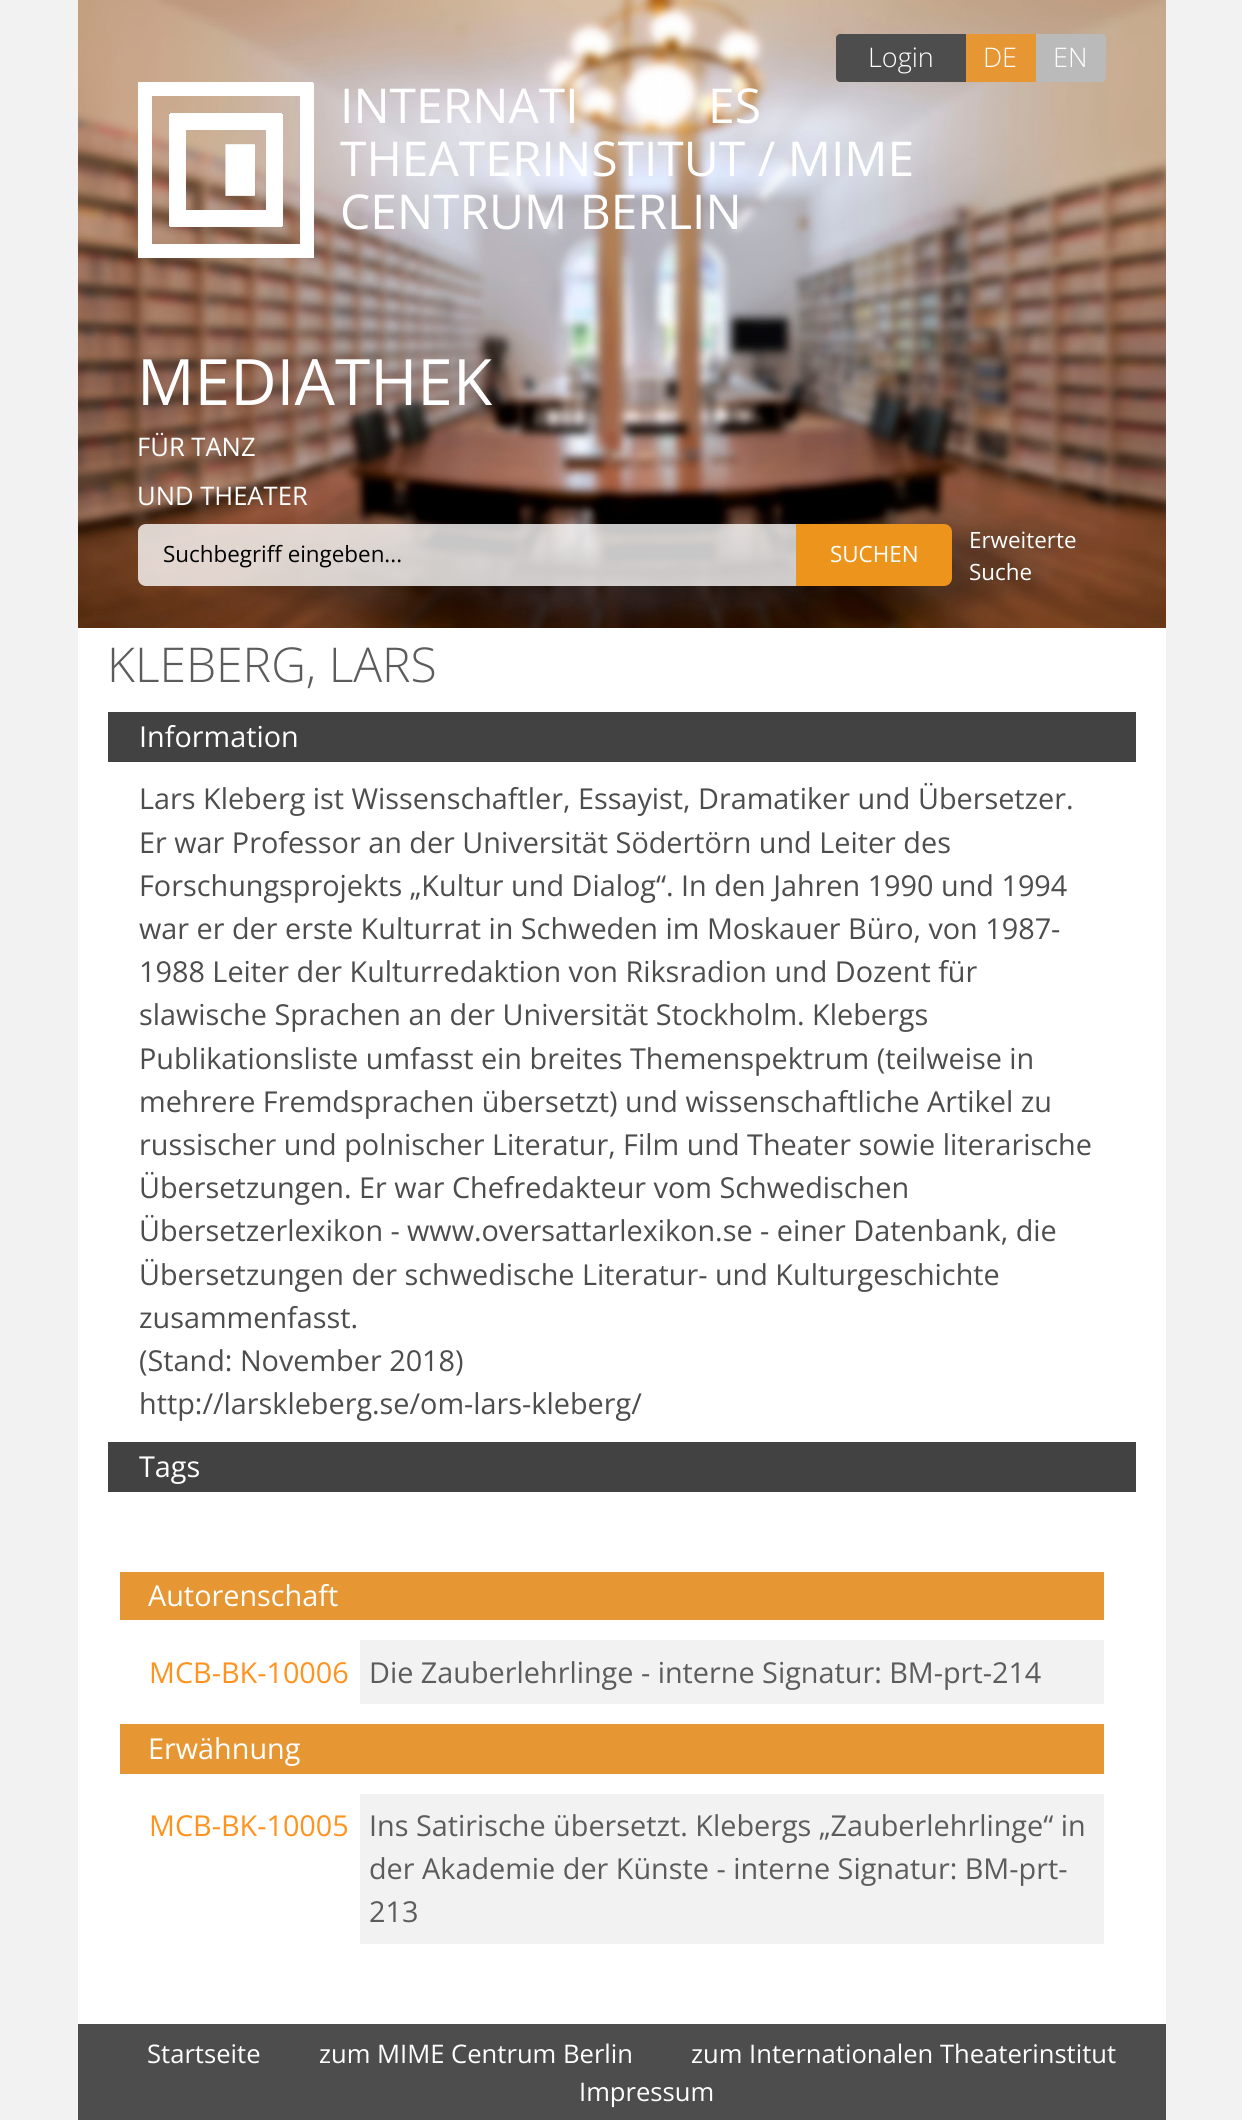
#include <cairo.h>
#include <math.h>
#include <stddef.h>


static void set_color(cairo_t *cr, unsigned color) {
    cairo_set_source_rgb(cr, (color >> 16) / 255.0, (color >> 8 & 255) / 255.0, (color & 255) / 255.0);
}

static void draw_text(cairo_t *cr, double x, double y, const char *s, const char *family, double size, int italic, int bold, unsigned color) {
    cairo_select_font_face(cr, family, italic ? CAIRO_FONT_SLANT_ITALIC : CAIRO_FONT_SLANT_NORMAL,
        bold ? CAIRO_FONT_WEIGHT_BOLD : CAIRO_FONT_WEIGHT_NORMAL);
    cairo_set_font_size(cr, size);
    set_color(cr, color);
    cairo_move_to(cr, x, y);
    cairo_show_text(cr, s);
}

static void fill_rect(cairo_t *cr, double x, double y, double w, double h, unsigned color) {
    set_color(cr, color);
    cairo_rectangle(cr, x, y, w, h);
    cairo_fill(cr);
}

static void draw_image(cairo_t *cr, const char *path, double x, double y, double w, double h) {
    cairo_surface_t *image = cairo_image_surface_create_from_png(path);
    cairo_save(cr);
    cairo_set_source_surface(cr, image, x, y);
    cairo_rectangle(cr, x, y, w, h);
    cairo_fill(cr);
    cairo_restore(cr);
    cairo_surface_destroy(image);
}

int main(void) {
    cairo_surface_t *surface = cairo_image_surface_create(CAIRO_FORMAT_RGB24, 1242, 2120);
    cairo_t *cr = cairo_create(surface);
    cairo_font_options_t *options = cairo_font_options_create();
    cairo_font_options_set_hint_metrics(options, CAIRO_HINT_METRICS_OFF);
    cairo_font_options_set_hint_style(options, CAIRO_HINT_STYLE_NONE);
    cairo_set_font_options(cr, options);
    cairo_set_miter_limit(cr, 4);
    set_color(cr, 0xF2F2F2);
    cairo_paint(cr);
    draw_image(cr, "assets/img1.png", 78, 0, 1088, 628);
    set_color(cr, 0x4D4D4D);
    cairo_new_path(cr);
    cairo_move_to(cr, 840, 34);
    cairo_line_to(cr, 966, 34);
    cairo_line_to(cr, 966, 82);
    cairo_line_to(cr, 840, 82);
    cairo_curve_to(cr, 838, 82, 836, 80, 836, 78);
    cairo_line_to(cr, 836, 38);
    cairo_curve_to(cr, 836, 36, 838, 34, 840, 34);
    cairo_close_path(cr);
    cairo_fill(cr);
    draw_text(cr, 868, 67, "Login", "Open Sans Light", 27, 0, 0, 0xFFFFFF);
    fill_rect(cr, 966, 34, 70, 48, 0xE69734);
    draw_text(cr, 983, 67, "DE", "Open Sans Light", 27, 0, 0, 0xFFFFFF);
    set_color(cr, 0xBBBABB);
    cairo_new_path(cr);
    cairo_move_to(cr, 1036, 34);
    cairo_line_to(cr, 1102, 34);
    cairo_curve_to(cr, 1104, 34, 1106, 36, 1106, 38);
    cairo_line_to(cr, 1106, 78);
    cairo_curve_to(cr, 1106, 80, 1104, 82, 1102, 82);
    cairo_line_to(cr, 1036, 82);
    cairo_close_path(cr);
    cairo_fill(cr);
    draw_text(cr, 1053, 67, "EN", "Open Sans Light", 27, 0, 0, 0xFFFFFF);
    draw_image(cr, "assets/img2.png", 138, 82, 176, 176);
    draw_text(cr, 340, 123, "INTERNATI", "Open Sans", 48, 0, 0, 0xFFFFFF);
    draw_text(cr, 708, 123, "ES", "Open Sans", 48, 0, 0, 0xFFFFFF);
    draw_text(cr, 340, 176, "THEATERINSTITUT / MIME", "Open Sans", 48, 0, 0, 0xFFFFFF);
    draw_text(cr, 340, 229, "CENTRUM BERLIN", "Open Sans", 48, 0, 0, 0xFFFFFF);
    draw_text(cr, 137, 405, "MEDIATHEK", "Open Sans", 64, 0, 0, 0xFFFFFF);
    draw_text(cr, 137, 456, "FÜR TANZ", "Open Sans", 25.6, 0, 0, 0xFFFFFF);
    draw_text(cr, 137, 505, "UND THEATER", "Open Sans", 25.6, 0, 0, 0xFFFFFF);
    cairo_set_source_rgba(cr, 1, 1, 1, 0.78);
    cairo_new_path(cr);
    cairo_move_to(cr, 146, 524);
    cairo_line_to(cr, 796, 524);
    cairo_line_to(cr, 796, 586);
    cairo_line_to(cr, 146, 586);
    cairo_curve_to(cr, 141.5, 586, 138, 582.5, 138, 578);
    cairo_line_to(cr, 138, 532);
    cairo_curve_to(cr, 138, 527.5, 141.5, 524, 146, 524);
    cairo_close_path(cr);
    cairo_fill(cr);
    draw_text(cr, 163, 562, "Suchbegriff eingeben...", "Open Sans", 22.4, 0, 0, 0x000000);
    set_color(cr, 0xEC941B);
    cairo_new_path(cr);
    cairo_move_to(cr, 796, 524);
    cairo_line_to(cr, 944, 524);
    cairo_curve_to(cr, 948.5, 524, 952, 527.5, 952, 532);
    cairo_line_to(cr, 952, 578);
    cairo_curve_to(cr, 952, 582.5, 948.5, 586, 944, 586);
    cairo_line_to(cr, 796, 586);
    cairo_close_path(cr);
    cairo_fill(cr);
    draw_text(cr, 830, 562, "SUCHEN", "Open Sans", 22.4, 0, 0, 0xFFFFFF);
    draw_text(cr, 969, 548, "Erweiterte", "Open Sans", 22.4, 0, 0, 0xFFFFFF);
    draw_text(cr, 969, 580, "Suche", "Open Sans", 22.4, 0, 0, 0xFFFFFF);
    fill_rect(cr, 78, 628, 1088, 1396, 0xFFFFFF);
    draw_text(cr, 107, 682, "KLEBERG, LARS", "Open Sans Light", 48, 0, 0, 0x5D5C5D);
    fill_rect(cr, 108, 712, 1028, 50, 0x424242);
    draw_text(cr, 139, 747, "Information", "Open Sans", 28.8, 0, 0, 0xFFFFFF);
    draw_text(cr, 139, 809, "Lars Kleberg ist Wissenschaftler, Essayist, Dramatiker und Übersetzer.", "Open Sans", 28.8, 0, 0, 0x4D4D4D);
    draw_text(cr, 139, 853, "Er war Professor an der Universität Södertörn und Leiter des", "Open Sans", 28.8, 0, 0, 0x4D4D4D);
    draw_text(cr, 139, 896, "Forschungsprojekts „Kultur und Dialog“. In den Jahren 1990 und 1994", "Open Sans", 28.8, 0, 0, 0x4D4D4D);
    draw_text(cr, 139, 939, "war er der erste Kulturrat in Schweden im Moskauer Büro, von 1987-", "Open Sans", 28.8, 0, 0, 0x4D4D4D);
    draw_text(cr, 139, 982, "1988 Leiter der Kulturredaktion von Riksradion und Dozent für", "Open Sans", 28.8, 0, 0, 0x4D4D4D);
    draw_text(cr, 139, 1025, "slawische Sprachen an der Universität Stockholm. Klebergs", "Open Sans", 28.8, 0, 0, 0x4D4D4D);
    draw_text(cr, 139, 1069, "Publikationsliste umfasst ein breites Themenspektrum (teilweise in", "Open Sans", 28.8, 0, 0, 0x4D4D4D);
    draw_text(cr, 139, 1112, "mehrere Fremdsprachen übersetzt) und wissenschaftliche Artikel zu", "Open Sans", 28.8, 0, 0, 0x4D4D4D);
    draw_text(cr, 139, 1155, "russischer und polnischer Literatur, Film und Theater sowie literarische", "Open Sans", 28.8, 0, 0, 0x4D4D4D);
    draw_text(cr, 139, 1198, "Übersetzungen. Er war Chefredakteur vom Schwedischen", "Open Sans", 28.8, 0, 0, 0x4D4D4D);
    draw_text(cr, 139, 1241, "Übersetzerlexikon -", "Open Sans", 28.8, 0, 0, 0x4D4D4D);
    draw_text(cr, 407, 1241, "www.oversattarlexikon.se", "Open Sans", 28.8, 0, 0, 0x4D4D4D);
    draw_text(cr, 760, 1241, "- einer Datenbank, die", "Open Sans", 28.8, 0, 0, 0x4D4D4D);
    draw_text(cr, 139, 1285, "Übersetzungen der schwedische Literatur- und Kulturgeschichte", "Open Sans", 28.8, 0, 0, 0x4D4D4D);
    draw_text(cr, 139, 1328, "zusammenfasst.", "Open Sans", 28.8, 0, 0, 0x4D4D4D);
    draw_text(cr, 139, 1371, "(Stand: November 2018)", "Open Sans", 28.8, 0, 0, 0x4D4D4D);
    draw_text(cr, 139, 1414, "http://larskleberg.se/om-lars-kleberg/", "Open Sans", 28.8, 0, 0, 0x4D4D4D);
    fill_rect(cr, 108, 1442, 1028, 50, 0x424242);
    draw_text(cr, 139, 1477, "Tags", "Open Sans", 28.8, 0, 0, 0xFFFFFF);
    fill_rect(cr, 120, 1572, 984, 48, 0xE69734);
    draw_text(cr, 148, 1606, "Autorenschaft", "Open Sans", 28.8, 0, 0, 0xFFFFFF);
    draw_text(cr, 149, 1683, "MCB-BK-10006", "Open Sans", 28.8, 0, 0, 0xFF931E);
    fill_rect(cr, 360, 1640, 744, 64, 0xF2F2F2);
    draw_text(cr, 369, 1683, "Die Zauberlehrlinge - interne Signatur: BM-prt-214", "Open Sans", 28.8, 0, 0, 0x5D5C5D);
    fill_rect(cr, 120, 1724, 984, 50, 0xE69734);
    draw_text(cr, 148, 1759, "Erwähnung", "Open Sans", 28.8, 0, 0, 0xFFFFFF);
    draw_text(cr, 149, 1836, "MCB-BK-10005", "Open Sans", 28.8, 0, 0, 0xFF931E);
    fill_rect(cr, 360, 1794, 744, 150, 0xF2F2F2);
    draw_text(cr, 369, 1836, "Ins Satirische übersetzt. Klebergs „Zauberlehrlinge“ in", "Open Sans", 28.8, 0, 0, 0x5D5C5D);
    draw_text(cr, 369, 1879, "der Akademie der Künste - interne Signatur: BM-prt-", "Open Sans", 28.8, 0, 0, 0x5D5C5D);
    draw_text(cr, 369, 1922, "213", "Open Sans", 28.8, 0, 0, 0x5D5C5D);
    fill_rect(cr, 78, 2024, 1088, 96, 0x4D4D4D);
    draw_text(cr, 147, 2063, "Startseite", "Open Sans", 25.6, 0, 0, 0xFFFFFF);
    draw_text(cr, 319, 2063, "zum MIME Centrum Berlin", "Open Sans", 25.6, 0, 0, 0xFFFFFF);
    draw_text(cr, 691, 2063, "zum Internationalen Theaterinstitut", "Open Sans", 25.6, 0, 0, 0xFFFFFF);
    draw_text(cr, 579, 2101, "Impressum", "Open Sans", 25.6, 0, 0, 0xFFFFFF);
    cairo_surface_write_to_png(surface, "output.png");
    cairo_font_options_destroy(options);
    cairo_destroy(cr);
    cairo_surface_destroy(surface);
    return 0;
}
